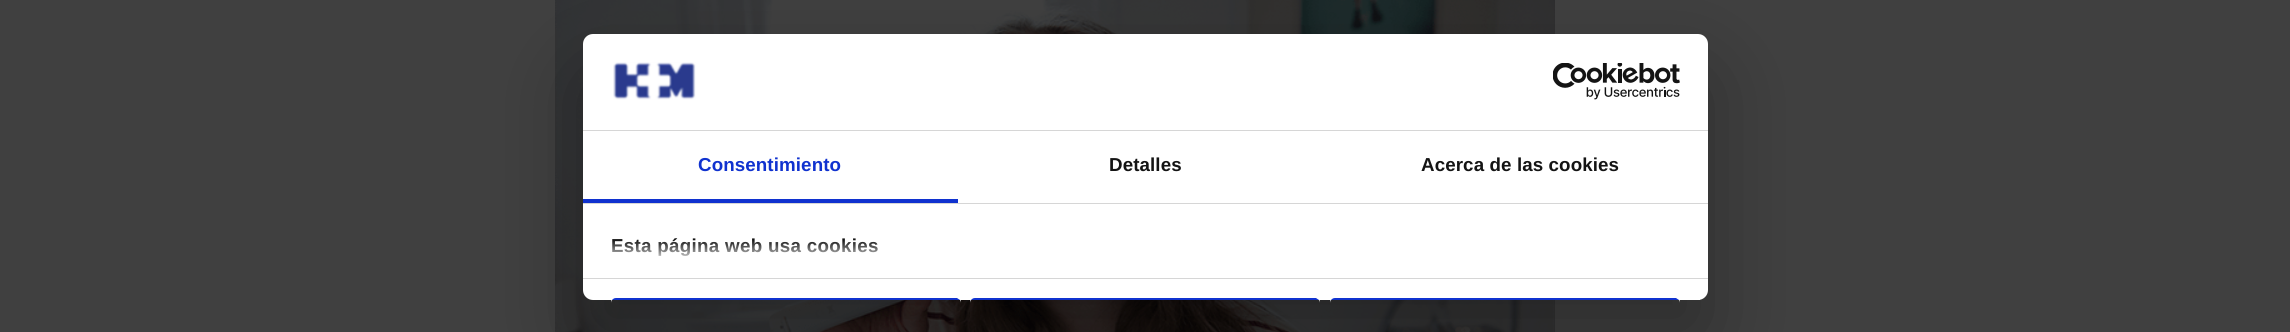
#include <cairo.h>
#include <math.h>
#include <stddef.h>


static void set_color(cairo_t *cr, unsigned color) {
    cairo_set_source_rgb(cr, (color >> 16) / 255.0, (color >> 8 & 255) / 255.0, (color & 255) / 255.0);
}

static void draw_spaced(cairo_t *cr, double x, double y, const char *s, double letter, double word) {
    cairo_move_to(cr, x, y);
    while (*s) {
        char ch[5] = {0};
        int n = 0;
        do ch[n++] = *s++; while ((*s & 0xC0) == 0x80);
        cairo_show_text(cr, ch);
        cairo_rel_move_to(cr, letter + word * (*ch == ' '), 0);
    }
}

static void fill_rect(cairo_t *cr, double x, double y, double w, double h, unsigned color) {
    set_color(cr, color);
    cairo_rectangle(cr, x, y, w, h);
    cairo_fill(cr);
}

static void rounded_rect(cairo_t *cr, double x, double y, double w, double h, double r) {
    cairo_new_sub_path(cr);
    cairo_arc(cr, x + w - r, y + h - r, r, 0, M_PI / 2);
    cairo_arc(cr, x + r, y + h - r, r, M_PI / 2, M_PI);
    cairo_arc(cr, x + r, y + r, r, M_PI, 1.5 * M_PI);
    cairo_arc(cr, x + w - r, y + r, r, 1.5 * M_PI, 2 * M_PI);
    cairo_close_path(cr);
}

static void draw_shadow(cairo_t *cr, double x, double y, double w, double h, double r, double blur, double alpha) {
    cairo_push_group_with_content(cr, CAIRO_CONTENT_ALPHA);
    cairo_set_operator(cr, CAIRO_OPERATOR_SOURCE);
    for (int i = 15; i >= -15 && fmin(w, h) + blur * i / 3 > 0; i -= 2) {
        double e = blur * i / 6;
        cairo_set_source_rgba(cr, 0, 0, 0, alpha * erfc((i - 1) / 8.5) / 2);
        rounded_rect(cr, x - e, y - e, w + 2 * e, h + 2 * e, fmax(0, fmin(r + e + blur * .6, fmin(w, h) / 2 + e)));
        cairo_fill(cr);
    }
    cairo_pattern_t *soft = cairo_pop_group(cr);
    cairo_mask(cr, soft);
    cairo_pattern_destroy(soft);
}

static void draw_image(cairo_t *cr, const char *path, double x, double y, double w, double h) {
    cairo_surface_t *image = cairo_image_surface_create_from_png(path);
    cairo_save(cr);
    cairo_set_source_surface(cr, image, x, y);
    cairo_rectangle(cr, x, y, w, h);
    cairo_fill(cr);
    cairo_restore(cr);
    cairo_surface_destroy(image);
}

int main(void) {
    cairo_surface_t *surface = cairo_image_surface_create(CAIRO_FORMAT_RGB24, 2290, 332);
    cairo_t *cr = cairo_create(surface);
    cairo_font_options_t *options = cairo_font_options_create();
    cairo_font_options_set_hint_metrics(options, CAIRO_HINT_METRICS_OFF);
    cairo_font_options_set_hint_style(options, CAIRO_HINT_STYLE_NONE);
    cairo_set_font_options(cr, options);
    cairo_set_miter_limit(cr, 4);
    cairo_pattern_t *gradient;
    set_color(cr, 0x404040);
    cairo_paint(cr);
    draw_image(cr, "assets/img1.png", 555, 0, 1000, 332);
    set_color(cr, 0x000000);
    draw_shadow(cr, 583, 74, 1125, 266, 10, 42.5, 0.3);
    set_color(cr, 0xFFFFFF);
    rounded_rect(cr, 583, 34, 1125, 266, 10);
    cairo_fill(cr);
    fill_rect(cr, 583, 130, 1125, 1, 0xD6D6D6);
    draw_image(cr, "assets/img2.png", 613, 62, 83, 38);
    draw_image(cr, "assets/img3.png", 1553, 63, 127, 37);
    fill_rect(cr, 583, 203, 1125, 1, 0xD6D6D6);
    fill_rect(cr, 583, 199, 375, 4, 0x1032CF);
    cairo_select_font_face(cr, "Liberation Sans", CAIRO_FONT_SLANT_NORMAL, CAIRO_FONT_WEIGHT_BOLD);
    cairo_set_font_size(cr, 18.75);
    draw_spaced(cr, 698, 171, "Consentimiento", 0.1, 0);
    set_color(cr, 0x141414);
    draw_spaced(cr, 1109, 171, "Detalles", 0.1, 0);
    draw_spaced(cr, 1421, 171, "Acerca de las cookies", 0.1, 0);
    fill_rect(cr, 583, 278, 1125, 1, 0xD6D6D6);
    set_color(cr, 0x141414);
    draw_spaced(cr, 611, 252, "Esta página web usa cookies", 0.3, 0);
    gradient = cairo_pattern_create_linear(1133, 277, 1133, 240);
    cairo_pattern_add_color_stop_rgba(gradient, 0, 1, 1, 1, 1);
    cairo_pattern_add_color_stop_rgba(gradient, 0.5, 1, 1, 1, 0.8);
    cairo_pattern_add_color_stop_rgba(gradient, 1, 1, 1, 1, 0);
    cairo_set_source(cr, gradient);
    cairo_pattern_destroy(gradient);
    cairo_rectangle(cr, 611, 240, 267, 16);
    cairo_fill(cr);
    set_color(cr, 0xFFFFFF);
    cairo_new_path(cr);
    cairo_move_to(cr, 616, 298);
    cairo_line_to(cr, 956, 298);
    cairo_curve_to(cr, 959, 298, 961, 300, 961, 303);
    cairo_line_to(cr, 961, 300);
    cairo_line_to(cr, 611, 300);
    cairo_line_to(cr, 611, 303);
    cairo_curve_to(cr, 611, 300, 613, 298, 616, 298);
    cairo_close_path(cr);
    cairo_fill(cr);
    set_color(cr, 0x1032CF);
    cairo_new_path(cr);
    cairo_move_to(cr, 616, 298);
    cairo_line_to(cr, 957, 298);
    cairo_line_to(cr, 960, 300);
    cairo_line_to(cr, 612, 300);
    cairo_curve_to(cr, 613, 299, 614, 298, 616, 298);
    cairo_close_path(cr);
    cairo_fill(cr);
    set_color(cr, 0xFFFFFF);
    cairo_new_path(cr);
    cairo_move_to(cr, 975, 298);
    cairo_line_to(cr, 1315, 298);
    cairo_curve_to(cr, 1318, 298, 1320, 300, 1320, 303);
    cairo_line_to(cr, 1320, 300);
    cairo_line_to(cr, 970, 300);
    cairo_line_to(cr, 970, 303);
    cairo_curve_to(cr, 970, 300, 972, 298, 975, 298);
    cairo_close_path(cr);
    cairo_fill(cr);
    set_color(cr, 0x1032CF);
    cairo_new_path(cr);
    cairo_move_to(cr, 975, 298);
    cairo_line_to(cr, 1316, 298);
    cairo_line_to(cr, 1319, 300);
    cairo_line_to(cr, 971, 300);
    cairo_curve_to(cr, 972, 299, 973, 298, 975, 298);
    cairo_close_path(cr);
    cairo_fill(cr);
    set_color(cr, 0xFFFFFF);
    cairo_new_path(cr);
    cairo_move_to(cr, 1335, 298);
    cairo_line_to(cr, 1675, 298);
    cairo_curve_to(cr, 1678, 298, 1680, 300, 1680, 303);
    cairo_line_to(cr, 1680, 300);
    cairo_line_to(cr, 1330, 300);
    cairo_line_to(cr, 1330, 303);
    cairo_curve_to(cr, 1330, 300, 1332, 298, 1335, 298);
    cairo_close_path(cr);
    cairo_fill(cr);
    set_color(cr, 0x1032CF);
    cairo_new_path(cr);
    cairo_move_to(cr, 1335, 298);
    cairo_line_to(cr, 1676, 298);
    cairo_line_to(cr, 1679, 300);
    cairo_line_to(cr, 1331, 300);
    cairo_curve_to(cr, 1332, 299, 1333, 298, 1335, 298);
    cairo_close_path(cr);
    cairo_fill(cr);
    fill_rect(cr, 1698, 299, 2, 1, 0xFFFFFF);
    cairo_surface_write_to_png(surface, "output.png");
    cairo_font_options_destroy(options);
    cairo_destroy(cr);
    cairo_surface_destroy(surface);
    return 0;
}
